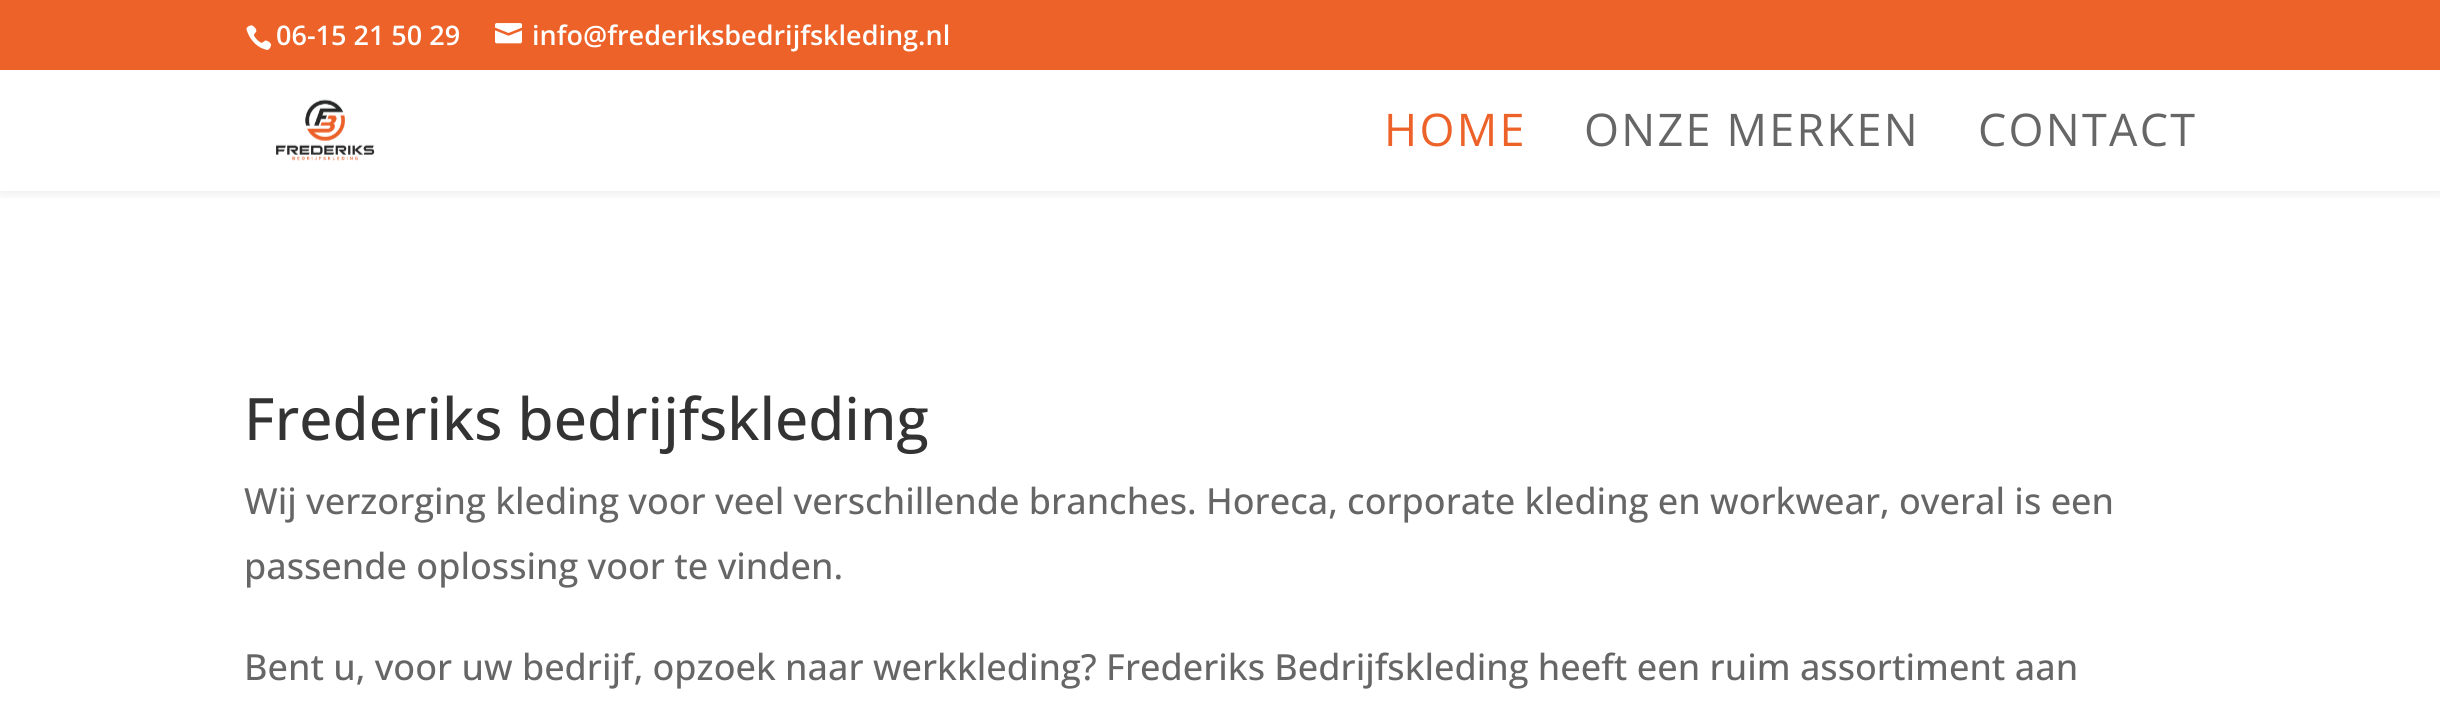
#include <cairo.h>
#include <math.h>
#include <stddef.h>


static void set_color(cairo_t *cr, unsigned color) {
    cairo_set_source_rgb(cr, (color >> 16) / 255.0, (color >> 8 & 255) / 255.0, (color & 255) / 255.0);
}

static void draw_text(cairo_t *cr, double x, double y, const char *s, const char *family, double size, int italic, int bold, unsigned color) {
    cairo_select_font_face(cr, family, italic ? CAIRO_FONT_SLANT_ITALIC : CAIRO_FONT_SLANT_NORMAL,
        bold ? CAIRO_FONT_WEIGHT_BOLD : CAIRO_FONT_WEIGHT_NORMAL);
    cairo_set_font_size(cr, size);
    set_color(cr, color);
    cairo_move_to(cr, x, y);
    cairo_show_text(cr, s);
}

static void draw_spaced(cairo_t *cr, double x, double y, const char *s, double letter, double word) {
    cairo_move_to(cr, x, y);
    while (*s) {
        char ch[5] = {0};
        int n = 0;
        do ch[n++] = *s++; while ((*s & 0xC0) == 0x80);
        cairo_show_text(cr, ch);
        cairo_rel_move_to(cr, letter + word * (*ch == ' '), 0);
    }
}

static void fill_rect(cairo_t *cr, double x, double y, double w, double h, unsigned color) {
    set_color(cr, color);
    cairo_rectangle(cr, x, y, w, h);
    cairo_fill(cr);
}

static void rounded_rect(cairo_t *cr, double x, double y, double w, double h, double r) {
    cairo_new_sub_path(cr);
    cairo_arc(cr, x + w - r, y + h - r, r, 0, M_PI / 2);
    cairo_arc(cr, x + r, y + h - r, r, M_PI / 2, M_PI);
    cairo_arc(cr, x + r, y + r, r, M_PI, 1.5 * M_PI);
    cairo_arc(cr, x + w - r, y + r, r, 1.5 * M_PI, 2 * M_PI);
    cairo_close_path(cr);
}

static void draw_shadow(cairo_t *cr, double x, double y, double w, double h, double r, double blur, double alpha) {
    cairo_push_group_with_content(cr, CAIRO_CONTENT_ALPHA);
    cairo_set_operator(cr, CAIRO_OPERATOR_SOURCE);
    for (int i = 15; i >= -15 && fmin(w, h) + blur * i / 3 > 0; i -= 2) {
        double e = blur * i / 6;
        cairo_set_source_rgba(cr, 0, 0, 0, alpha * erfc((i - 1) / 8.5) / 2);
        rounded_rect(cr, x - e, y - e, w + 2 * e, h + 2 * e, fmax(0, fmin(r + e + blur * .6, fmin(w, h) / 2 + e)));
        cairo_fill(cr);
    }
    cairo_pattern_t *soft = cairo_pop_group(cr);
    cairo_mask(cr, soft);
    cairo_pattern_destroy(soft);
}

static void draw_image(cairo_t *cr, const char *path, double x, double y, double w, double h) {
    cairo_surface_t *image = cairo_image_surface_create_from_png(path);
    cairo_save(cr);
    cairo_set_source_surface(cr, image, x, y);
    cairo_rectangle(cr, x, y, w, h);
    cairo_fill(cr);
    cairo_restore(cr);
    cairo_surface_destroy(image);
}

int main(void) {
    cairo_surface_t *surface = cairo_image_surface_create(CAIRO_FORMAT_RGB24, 2440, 702);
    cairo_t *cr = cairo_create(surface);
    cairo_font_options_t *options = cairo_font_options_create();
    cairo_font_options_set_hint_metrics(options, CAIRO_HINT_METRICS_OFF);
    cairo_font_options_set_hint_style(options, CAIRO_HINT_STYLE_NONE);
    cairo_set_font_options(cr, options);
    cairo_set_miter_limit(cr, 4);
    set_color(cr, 0xFFFFFF);
    cairo_paint(cr);
    cairo_save(cr);
    cairo_rectangle(cr, 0, 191, 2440, 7);
    cairo_clip(cr);
    set_color(cr, 0x000000);
    draw_shadow(cr, 0, 70, 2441, 121, 0, 8, 0.1);
    cairo_restore(cr);
    fill_rect(cr, 0, 0, 2440, 70, 0xED6229);
    draw_image(cr, "assets/img1.png", 246, 25, 26, 26);
    draw_text(cr, 276, 45, "06-15 21 50 29", "Open Sans SemiBold", 27, 0, 0, 0xFFFFFF);
    draw_image(cr, "assets/img2.png", 495, 23, 27, 21);
    draw_text(cr, 532, 45, "info@frederiksbedrijfskleding.nl", "Open Sans SemiBold", 27, 0, 0, 0xFFFFFF);
    draw_image(cr, "assets/img3.png", 276, 99, 99, 62);
    cairo_select_font_face(cr, "Open Sans", CAIRO_FONT_SLANT_NORMAL, CAIRO_FONT_WEIGHT_NORMAL);
    cairo_set_font_size(cr, 45);
    set_color(cr, 0xED6229);
    draw_spaced(cr, 1384, 146, "HOME", 2.25, 0);
    set_color(cr, 0x666666);
    draw_spaced(cr, 1584, 146, "ONZE MERKEN", 2.25, 0);
    draw_spaced(cr, 1978, 146, "CONTACT", 2.25, 0);
    draw_text(cr, 244, 440, "Frederiks bedrijfskleding", "Open Sans Medium", 58.5, 0, 0, 0x333333);
    draw_text(cr, 244, 514, "Wij verzorging kleding voor veel verschillende branches. Horeca, corporate kleding en workwear, overal is een", "Open Sans Medium", 36, 0, 0, 0x666666);
    draw_text(cr, 244, 579, "passende oplossing voor te vinden.", "Open Sans Medium", 36, 0, 0, 0x666666);
    draw_text(cr, 244, 680, "Bent u, voor uw bedrijf, opzoek naar werkkleding? Frederiks Bedrijfskleding heeft een ruim assortiment aan", "Open Sans Medium", 36, 0, 0, 0x666666);
    cairo_surface_write_to_png(surface, "output.png");
    cairo_font_options_destroy(options);
    cairo_destroy(cr);
    cairo_surface_destroy(surface);
    return 0;
}
